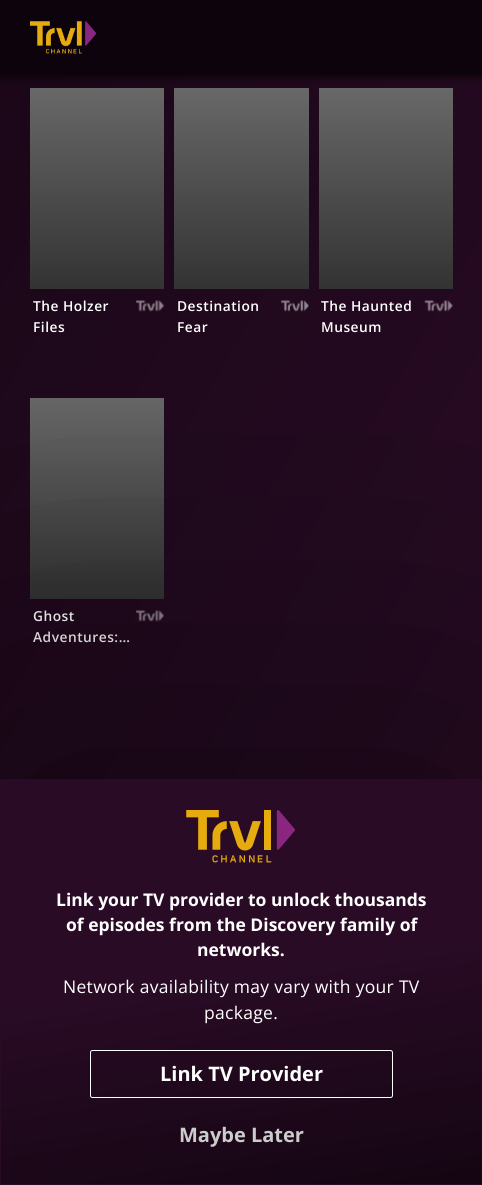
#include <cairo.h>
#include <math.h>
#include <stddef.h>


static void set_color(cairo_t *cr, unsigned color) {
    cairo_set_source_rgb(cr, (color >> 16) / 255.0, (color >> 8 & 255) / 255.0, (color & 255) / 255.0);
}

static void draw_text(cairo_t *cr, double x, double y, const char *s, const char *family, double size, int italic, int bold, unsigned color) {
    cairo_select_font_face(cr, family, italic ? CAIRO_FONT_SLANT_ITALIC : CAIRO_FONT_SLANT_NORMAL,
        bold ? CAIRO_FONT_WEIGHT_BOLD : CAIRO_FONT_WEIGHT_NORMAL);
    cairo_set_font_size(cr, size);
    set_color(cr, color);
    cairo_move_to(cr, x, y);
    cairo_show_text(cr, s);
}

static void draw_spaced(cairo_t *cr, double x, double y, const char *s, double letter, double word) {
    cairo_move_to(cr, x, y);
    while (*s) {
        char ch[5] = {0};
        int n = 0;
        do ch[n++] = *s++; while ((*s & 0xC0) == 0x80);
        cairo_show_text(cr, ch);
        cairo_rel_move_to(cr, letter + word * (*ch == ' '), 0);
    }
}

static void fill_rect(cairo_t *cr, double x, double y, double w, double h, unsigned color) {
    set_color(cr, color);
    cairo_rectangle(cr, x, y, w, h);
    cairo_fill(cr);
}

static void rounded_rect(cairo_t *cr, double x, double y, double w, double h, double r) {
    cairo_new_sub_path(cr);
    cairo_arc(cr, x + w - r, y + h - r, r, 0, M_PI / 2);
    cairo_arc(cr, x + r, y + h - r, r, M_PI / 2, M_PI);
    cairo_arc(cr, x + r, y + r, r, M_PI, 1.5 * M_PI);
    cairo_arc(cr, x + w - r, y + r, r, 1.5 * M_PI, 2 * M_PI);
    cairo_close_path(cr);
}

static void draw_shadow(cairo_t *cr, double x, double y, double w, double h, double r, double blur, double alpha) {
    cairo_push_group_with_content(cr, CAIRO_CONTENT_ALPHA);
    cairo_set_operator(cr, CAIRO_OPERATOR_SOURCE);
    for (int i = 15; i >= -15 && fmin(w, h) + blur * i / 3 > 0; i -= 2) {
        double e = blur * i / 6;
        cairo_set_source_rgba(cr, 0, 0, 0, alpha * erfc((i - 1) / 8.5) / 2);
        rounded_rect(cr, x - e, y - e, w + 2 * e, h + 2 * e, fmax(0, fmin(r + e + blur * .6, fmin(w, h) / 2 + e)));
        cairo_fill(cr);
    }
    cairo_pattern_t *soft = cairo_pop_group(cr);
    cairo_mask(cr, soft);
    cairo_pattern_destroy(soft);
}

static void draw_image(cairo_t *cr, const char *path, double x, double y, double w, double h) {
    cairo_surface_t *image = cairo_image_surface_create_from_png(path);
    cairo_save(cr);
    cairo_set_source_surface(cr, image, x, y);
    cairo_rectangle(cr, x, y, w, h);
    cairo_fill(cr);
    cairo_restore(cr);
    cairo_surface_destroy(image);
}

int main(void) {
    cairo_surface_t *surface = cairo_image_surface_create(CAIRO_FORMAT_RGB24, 482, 1185);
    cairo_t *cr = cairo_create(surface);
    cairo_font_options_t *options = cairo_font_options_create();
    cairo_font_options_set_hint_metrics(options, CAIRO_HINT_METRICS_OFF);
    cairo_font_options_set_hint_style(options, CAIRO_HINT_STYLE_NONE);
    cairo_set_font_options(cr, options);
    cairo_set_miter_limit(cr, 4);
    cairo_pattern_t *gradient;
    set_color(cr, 0x0D030C);
    cairo_paint(cr);
    gradient = cairo_pattern_create_linear(-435, -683, 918, 98);
    cairo_pattern_add_color_stop_rgba(gradient, 0, 0.051, 0.012, 0.047, 1);
    cairo_pattern_add_color_stop_rgba(gradient, 1, 0.161, 0.043, 0.145, 1);
    cairo_set_source(cr, gradient);
    cairo_pattern_destroy(gradient);
    cairo_rectangle(cr, 0, 75, 482, 707);
    cairo_fill(cr);
    gradient = cairo_pattern_create_linear(97, 88, 97, 289);
    cairo_pattern_add_color_stop_rgba(gradient, 0, 0.408, 0.408, 0.408, 1);
    cairo_pattern_add_color_stop_rgba(gradient, 1, 0.2, 0.2, 0.2, 1);
    cairo_set_source(cr, gradient);
    cairo_pattern_destroy(gradient);
    cairo_rectangle(cr, 30, 88, 134, 201);
    cairo_fill(cr);
    gradient = cairo_pattern_create_linear(241, 88, 241, 289);
    cairo_pattern_add_color_stop_rgba(gradient, 0, 0.408, 0.408, 0.408, 1);
    cairo_pattern_add_color_stop_rgba(gradient, 1, 0.2, 0.2, 0.2, 1);
    cairo_set_source(cr, gradient);
    cairo_pattern_destroy(gradient);
    cairo_rectangle(cr, 174, 88, 135, 201);
    cairo_fill(cr);
    gradient = cairo_pattern_create_linear(386, 88, 386, 289);
    cairo_pattern_add_color_stop_rgba(gradient, 0, 0.408, 0.408, 0.408, 1);
    cairo_pattern_add_color_stop_rgba(gradient, 1, 0.2, 0.2, 0.2, 1);
    cairo_set_source(cr, gradient);
    cairo_pattern_destroy(gradient);
    cairo_rectangle(cr, 319, 88, 134, 201);
    cairo_fill(cr);
    set_color(cr, 0x000000);
    draw_shadow(cr, 0, 3, 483, 75, 0, 4, 0.6);
    fill_rect(cr, 0, 1, 482, 74, 0x0D030C);
    draw_image(cr, "assets/img1.png", 30, 21, 67, 33);
    cairo_select_font_face(cr, "Open Sans SemiBold", CAIRO_FONT_SLANT_NORMAL, CAIRO_FONT_WEIGHT_NORMAL);
    cairo_set_font_size(cr, 13.75);
    set_color(cr, 0xFFFFFF);
    draw_spaced(cr, 33, 311, "The Holzer", 0.5, 0);
    draw_spaced(cr, 33, 332, "Files", 0.5, 0);
    draw_image(cr, "assets/img2.png", 136, 300, 29, 12);
    draw_spaced(cr, 177, 311, "Destination", 0.5, 0);
    draw_spaced(cr, 177, 332, "Fear", 0.5, 0);
    draw_image(cr, "assets/img3.png", 281, 300, 28, 12);
    draw_spaced(cr, 321, 311, "The Haunted", 0.5, 0);
    draw_spaced(cr, 321, 332, "Museum", 0.5, 0);
    draw_image(cr, "assets/img4.png", 424, 300, 29, 12);
    gradient = cairo_pattern_create_linear(97, 398, 97, 599);
    cairo_pattern_add_color_stop_rgba(gradient, 0, 0.408, 0.408, 0.408, 1);
    cairo_pattern_add_color_stop_rgba(gradient, 1, 0.2, 0.2, 0.2, 1);
    cairo_set_source(cr, gradient);
    cairo_pattern_destroy(gradient);
    cairo_rectangle(cr, 30, 398, 134, 201);
    cairo_fill(cr);
    set_color(cr, 0xFFFFFF);
    draw_spaced(cr, 33, 621, "Ghost", 0.5, 0);
    draw_spaced(cr, 33, 642, "Adventures:…", 0.5, 0);
    draw_image(cr, "assets/img5.png", 136, 610, 29, 12);
    set_color(cr, 0x000000);
    draw_shadow(cr, -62, 716, 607, 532, 65, 187.5, 0.2);
    draw_shadow(cr, -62, 716, 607, 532, 65, 187.5, 0.3);
    gradient = cairo_pattern_create_linear(204, 748, 292, 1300);
    cairo_pattern_add_color_stop_rgba(gradient, 0.4, 0.161, 0.043, 0.145, 1);
    cairo_pattern_add_color_stop_rgba(gradient, 1, 0.051, 0.012, 0.047, 1);
    cairo_set_source(cr, gradient);
    cairo_pattern_destroy(gradient);
    cairo_rectangle(cr, 1, 780, 480, 404);
    cairo_fill(cr);
    gradient = cairo_pattern_create_linear(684, 748, 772, 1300);
    cairo_pattern_add_color_stop_rgba(gradient, 0.4, 0.161, 0.043, 0.145, 1);
    cairo_pattern_add_color_stop_rgba(gradient, 1, 0.051, 0.012, 0.047, 1);
    cairo_set_source(cr, gradient);
    cairo_pattern_destroy(gradient);
    cairo_rectangle(cr, 481, 780, 1, 404);
    cairo_fill(cr);
    gradient = cairo_pattern_create_linear(-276, 1152, -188, 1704);
    cairo_pattern_add_color_stop_rgba(gradient, 0.4, 0.161, 0.043, 0.145, 1);
    cairo_pattern_add_color_stop_rgba(gradient, 1, 0.051, 0.012, 0.047, 1);
    cairo_set_source(cr, gradient);
    cairo_pattern_destroy(gradient);
    cairo_rectangle(cr, 0, 1184, 1, 1);
    cairo_fill(cr);
    rounded_rect(cr, 0.5, 779.5, 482, 405, 2);
    set_color(cr, 0x290B25);
    cairo_set_line_width(cr, 1);
    cairo_stroke(cr);
    draw_image(cr, "assets/img6.png", 186, 810, 109, 53);
    draw_text(cr, 56, 906, "Link your TV provider to unlock thousands", "Open Sans", 17.5, 0, 1, 0xFFFFFF);
    draw_text(cr, 66, 931, "of episodes from the Discovery family of", "Open Sans", 17.5, 0, 1, 0xFFFFFF);
    draw_text(cr, 197, 956, "networks.", "Open Sans", 17.5, 0, 1, 0xFFFFFF);
    cairo_select_font_face(cr, "Open Sans", CAIRO_FONT_SLANT_NORMAL, CAIRO_FONT_WEIGHT_NORMAL);
    draw_spaced(cr, 63, 993, "Network availability may vary with your TV", 0.3, 0);
    draw_spaced(cr, 204, 1019, "package.", 0.3, 0);
    rounded_rect(cr, 90.5, 1050.5, 302, 47, 2);
    cairo_stroke(cr);
    draw_text(cr, 160, 1081, "Link TV Provider", "Open Sans", 20, 0, 1, 0xFFFFFF);
    draw_text(cr, 179, 1142, "Maybe Later", "Open Sans", 20, 0, 1, 0xCCCCCC);
    cairo_surface_write_to_png(surface, "output.png");
    cairo_font_options_destroy(options);
    cairo_destroy(cr);
    cairo_surface_destroy(surface);
    return 0;
}
